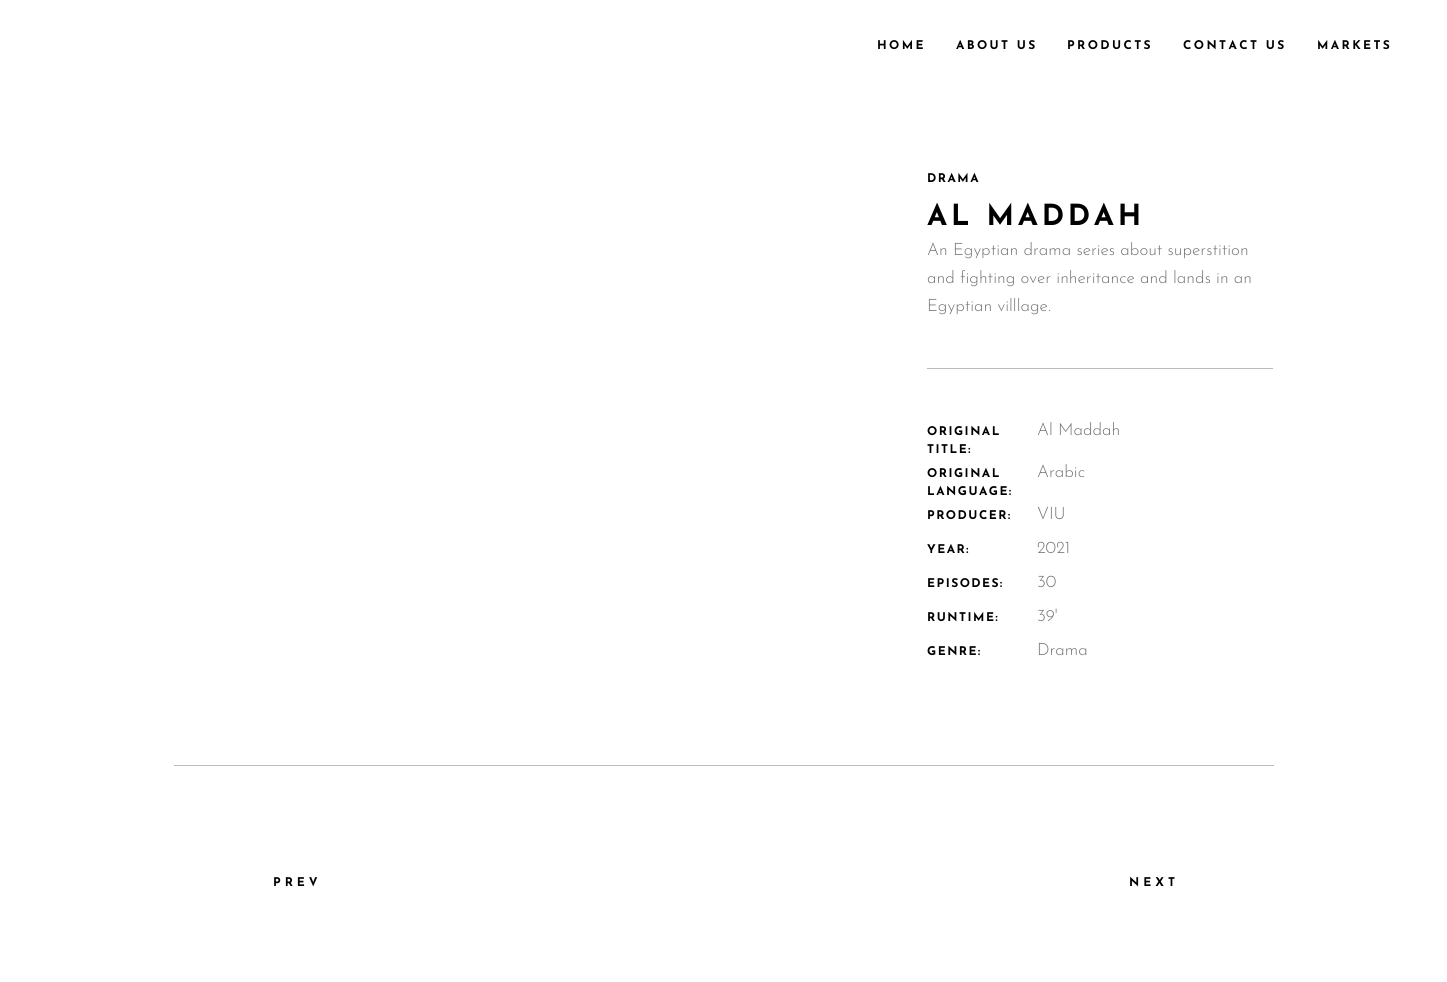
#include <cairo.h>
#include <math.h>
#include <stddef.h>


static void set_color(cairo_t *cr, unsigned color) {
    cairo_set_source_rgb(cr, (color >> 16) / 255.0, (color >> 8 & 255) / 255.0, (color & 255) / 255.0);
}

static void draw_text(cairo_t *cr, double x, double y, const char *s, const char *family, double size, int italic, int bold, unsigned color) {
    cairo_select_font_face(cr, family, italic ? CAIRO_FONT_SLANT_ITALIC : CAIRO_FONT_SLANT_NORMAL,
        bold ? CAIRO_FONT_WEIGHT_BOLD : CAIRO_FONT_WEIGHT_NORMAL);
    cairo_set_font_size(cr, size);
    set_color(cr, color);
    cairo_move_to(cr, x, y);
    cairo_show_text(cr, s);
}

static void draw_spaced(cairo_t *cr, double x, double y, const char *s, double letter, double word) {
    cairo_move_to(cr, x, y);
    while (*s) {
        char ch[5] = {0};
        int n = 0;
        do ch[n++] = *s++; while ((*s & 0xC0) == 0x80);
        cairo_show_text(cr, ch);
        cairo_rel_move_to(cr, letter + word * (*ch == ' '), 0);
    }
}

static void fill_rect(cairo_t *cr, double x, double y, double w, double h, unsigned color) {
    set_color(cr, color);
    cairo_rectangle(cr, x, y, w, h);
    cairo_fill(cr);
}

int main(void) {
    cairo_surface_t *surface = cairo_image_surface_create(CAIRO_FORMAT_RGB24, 1447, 982);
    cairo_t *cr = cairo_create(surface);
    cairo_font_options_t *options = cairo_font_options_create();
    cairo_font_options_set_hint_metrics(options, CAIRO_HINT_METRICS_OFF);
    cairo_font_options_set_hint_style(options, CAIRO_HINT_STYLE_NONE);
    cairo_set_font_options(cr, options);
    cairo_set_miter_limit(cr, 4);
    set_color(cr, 0xFFFFFF);
    cairo_paint(cr);
    cairo_select_font_face(cr, "Josefin Sans", CAIRO_FONT_SLANT_NORMAL, CAIRO_FONT_WEIGHT_BOLD);
    cairo_set_font_size(cr, 12);
    set_color(cr, 0x000000);
    draw_spaced(cr, 877, 49, "HOME", 2.4, 0);
    draw_spaced(cr, 956, 49, "ABOUT US", 2.4, 0);
    draw_spaced(cr, 1067, 49, "PRODUCTS", 2.4, 0);
    draw_spaced(cr, 1183, 49, "CONTACT US", 2.4, 0);
    draw_spaced(cr, 1317, 49, "MARKETS", 2.4, 0);
    draw_spaced(cr, 927, 182, "DRAMA", 1.5, 0);
    cairo_set_font_size(cr, 29);
    draw_spaced(cr, 927, 225, "AL MADDAH", 3.75, 0);
    draw_text(cr, 927, 255, "An Egyptian drama series about superstition", "Josefin Sans Light", 17, 0, 0, 0x737373);
    draw_text(cr, 927, 283, "and fighting over inheritance and lands in an", "Josefin Sans Light", 17, 0, 0, 0x737373);
    draw_text(cr, 927, 311, "Egyptian villlage.", "Josefin Sans Light", 17, 0, 0, 0x737373);
    fill_rect(cr, 927, 368, 346, 1, 0xBBBBBB);
    cairo_select_font_face(cr, "Josefin Sans", CAIRO_FONT_SLANT_NORMAL, CAIRO_FONT_WEIGHT_BOLD);
    cairo_set_font_size(cr, 12);
    set_color(cr, 0x000000);
    draw_spaced(cr, 927, 435, "ORIGINAL", 1.5, 0);
    draw_spaced(cr, 927, 453, "TITLE:", 1.5, 0);
    draw_text(cr, 1037, 435, "Al Maddah", "Josefin Sans Light", 17, 0, 0, 0x737373);
    cairo_select_font_face(cr, "Josefin Sans", CAIRO_FONT_SLANT_NORMAL, CAIRO_FONT_WEIGHT_BOLD);
    cairo_set_font_size(cr, 12);
    set_color(cr, 0x000000);
    draw_spaced(cr, 927, 477, "ORIGINAL", 1.5, 0);
    draw_spaced(cr, 927, 495, "LANGUAGE:", 1.5, 0);
    draw_text(cr, 1037, 477, "Arabic", "Josefin Sans Light", 17, 0, 0, 0x737373);
    cairo_select_font_face(cr, "Josefin Sans", CAIRO_FONT_SLANT_NORMAL, CAIRO_FONT_WEIGHT_BOLD);
    cairo_set_font_size(cr, 12);
    set_color(cr, 0x000000);
    draw_spaced(cr, 927, 519, "PRODUCER:", 1.5, 0);
    draw_text(cr, 1037, 519, "VIU", "Josefin Sans Light", 17, 0, 0, 0x737373);
    cairo_select_font_face(cr, "Josefin Sans", CAIRO_FONT_SLANT_NORMAL, CAIRO_FONT_WEIGHT_BOLD);
    cairo_set_font_size(cr, 12);
    set_color(cr, 0x000000);
    draw_spaced(cr, 927, 553, "YEAR:", 1.5, 0);
    draw_text(cr, 1037, 553, "2021", "Josefin Sans Light", 17, 0, 0, 0x737373);
    cairo_select_font_face(cr, "Josefin Sans", CAIRO_FONT_SLANT_NORMAL, CAIRO_FONT_WEIGHT_BOLD);
    cairo_set_font_size(cr, 12);
    set_color(cr, 0x000000);
    draw_spaced(cr, 927, 587, "EPISODES:", 1.5, 0);
    draw_text(cr, 1037, 587, "30", "Josefin Sans Light", 17, 0, 0, 0x737373);
    cairo_select_font_face(cr, "Josefin Sans", CAIRO_FONT_SLANT_NORMAL, CAIRO_FONT_WEIGHT_BOLD);
    cairo_set_font_size(cr, 12);
    set_color(cr, 0x000000);
    draw_spaced(cr, 927, 621, "RUNTIME:", 1.5, 0);
    draw_text(cr, 1037, 621, "39'", "Josefin Sans Light", 17, 0, 0, 0x737373);
    cairo_select_font_face(cr, "Josefin Sans", CAIRO_FONT_SLANT_NORMAL, CAIRO_FONT_WEIGHT_BOLD);
    cairo_set_font_size(cr, 12);
    set_color(cr, 0x000000);
    draw_spaced(cr, 927, 655, "GENRE:", 1.5, 0);
    draw_text(cr, 1037, 655, "Drama", "Josefin Sans Light", 17, 0, 0, 0x737373);
    fill_rect(cr, 174, 765, 1100, 1, 0xBBBBBB);
    cairo_select_font_face(cr, "Josefin Sans", CAIRO_FONT_SLANT_NORMAL, CAIRO_FONT_WEIGHT_BOLD);
    cairo_set_font_size(cr, 12);
    set_color(cr, 0x000000);
    draw_spaced(cr, 273, 886, "PREV", 4, 0);
    draw_spaced(cr, 1129, 886, "NEXT", 4, 0);
    cairo_surface_write_to_png(surface, "output.png");
    cairo_font_options_destroy(options);
    cairo_destroy(cr);
    cairo_surface_destroy(surface);
    return 0;
}
